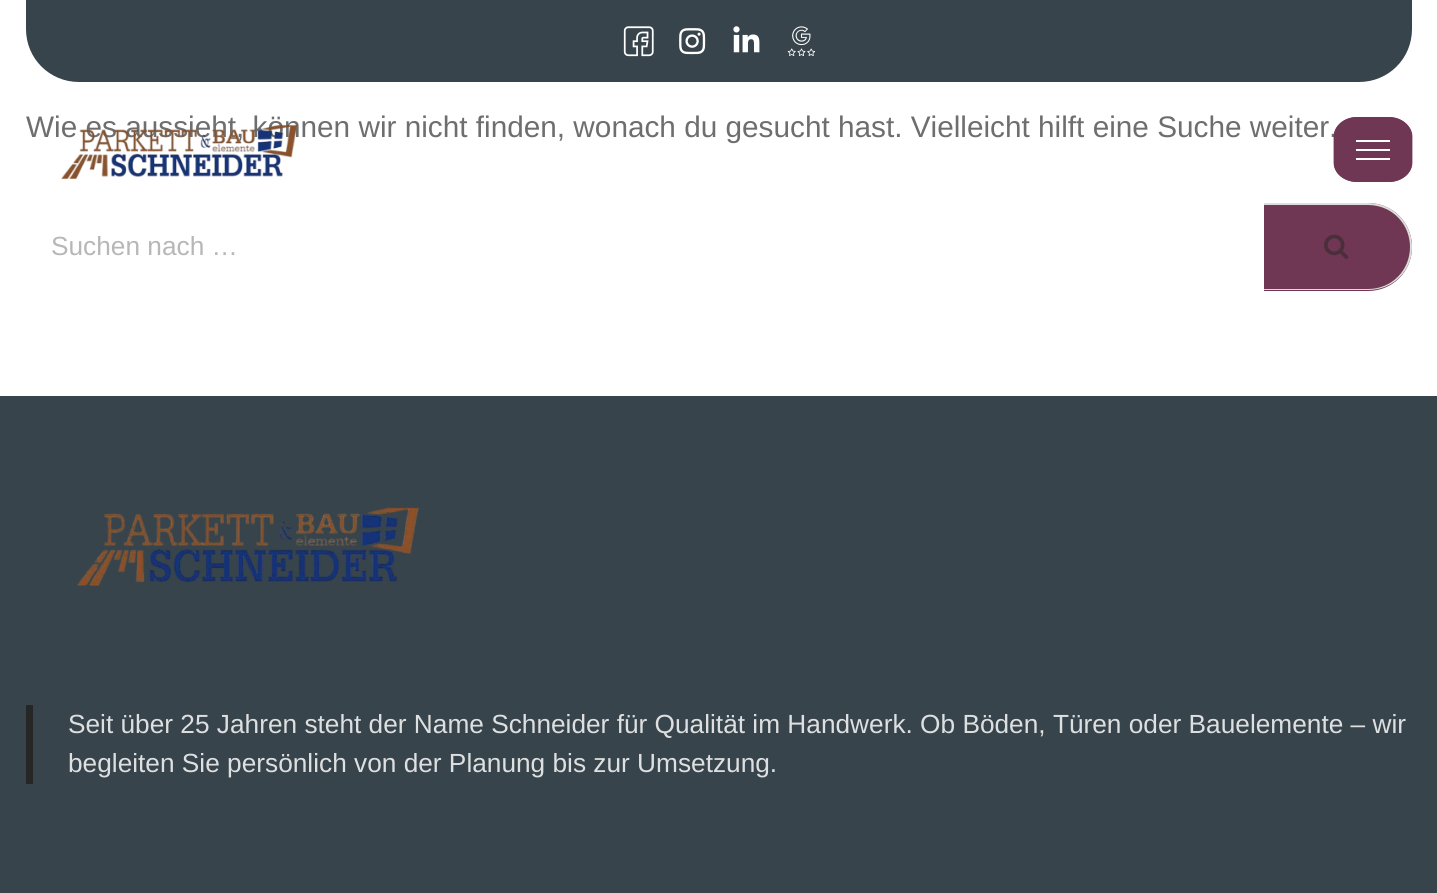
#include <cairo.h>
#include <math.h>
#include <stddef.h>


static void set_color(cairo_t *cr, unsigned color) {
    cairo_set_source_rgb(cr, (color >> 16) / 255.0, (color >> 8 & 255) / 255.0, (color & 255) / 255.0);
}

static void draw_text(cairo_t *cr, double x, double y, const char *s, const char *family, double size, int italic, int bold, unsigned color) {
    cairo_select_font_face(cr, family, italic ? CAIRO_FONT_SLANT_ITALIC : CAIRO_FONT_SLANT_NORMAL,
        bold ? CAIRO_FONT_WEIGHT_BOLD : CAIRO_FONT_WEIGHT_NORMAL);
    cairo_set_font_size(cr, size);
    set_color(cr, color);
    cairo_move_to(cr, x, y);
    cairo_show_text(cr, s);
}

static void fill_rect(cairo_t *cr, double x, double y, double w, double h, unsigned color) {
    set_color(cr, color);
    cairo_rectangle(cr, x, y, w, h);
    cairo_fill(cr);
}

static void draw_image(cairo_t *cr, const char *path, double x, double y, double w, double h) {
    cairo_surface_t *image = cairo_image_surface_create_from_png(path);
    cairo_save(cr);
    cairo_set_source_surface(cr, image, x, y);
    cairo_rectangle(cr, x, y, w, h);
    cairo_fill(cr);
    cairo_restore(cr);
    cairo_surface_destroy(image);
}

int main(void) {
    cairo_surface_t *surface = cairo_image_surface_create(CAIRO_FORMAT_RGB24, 1437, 893);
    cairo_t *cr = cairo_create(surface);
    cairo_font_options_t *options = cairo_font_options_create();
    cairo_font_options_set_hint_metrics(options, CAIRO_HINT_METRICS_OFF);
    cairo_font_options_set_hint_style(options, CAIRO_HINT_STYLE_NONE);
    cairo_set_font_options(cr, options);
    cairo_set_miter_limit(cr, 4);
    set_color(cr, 0xFFFFFF);
    cairo_paint(cr);
    set_color(cr, 0x37444B);
    cairo_new_path(cr);
    cairo_move_to(cr, 26, 0);
    cairo_line_to(cr, 1412, 0);
    cairo_line_to(cr, 1412, 29);
    cairo_curve_to(cr, 1412, 58.5, 1388.5, 82, 1359, 82);
    cairo_line_to(cr, 79, 82);
    cairo_curve_to(cr, 49.5, 82, 26, 58.5, 26, 29);
    cairo_close_path(cr);
    cairo_fill(cr);
    draw_image(cr, "assets/img1.png", 623, 26, 31, 31);
    draw_image(cr, "assets/img2.png", 679, 28, 27, 27);
    draw_image(cr, "assets/img3.png", 733, 26, 27, 27);
    draw_image(cr, "assets/img4.png", 787, 26, 29, 30);
    draw_text(cr, 26, 137, "Wie es aussieht, können wir nicht finden, wonach du gesucht hast. Vielleicht hilft eine Suche weiter.", "Liberation Sans", 29.75, 0, 0, 0x6E6E6E);
    draw_image(cr, "assets/img5.png", 61, 125, 237, 55);
    set_color(cr, 0x6F3753);
    cairo_new_path(cr);
    cairo_move_to(cr, 1357, 117);
    cairo_line_to(cr, 1389, 117);
    cairo_curve_to(cr, 1402, 117, 1412, 126, 1412, 137);
    cairo_line_to(cr, 1412, 163);
    cairo_curve_to(cr, 1412, 173, 1402, 182, 1389, 182);
    cairo_line_to(cr, 1357, 182);
    cairo_curve_to(cr, 1344, 182, 1334, 173, 1334, 163);
    cairo_line_to(cr, 1334, 137);
    cairo_curve_to(cr, 1334, 126, 1344, 117, 1357, 117);
    cairo_close_path(cr);
    cairo_fill(cr);
    cairo_new_path(cr);
    cairo_move_to(cr, 1357, 118);
    cairo_line_to(cr, 1388.5, 118);
    cairo_curve_to(cr, 1401, 118, 1411.5, 126.5, 1411.5, 136.5);
    cairo_line_to(cr, 1411.5, 162.5);
    cairo_curve_to(cr, 1411.5, 173, 1401, 181, 1388.5, 181);
    cairo_line_to(cr, 1357, 181);
    cairo_curve_to(cr, 1344.5, 181, 1334.5, 173, 1334.5, 162.5);
    cairo_line_to(cr, 1334.5, 136.5);
    cairo_curve_to(cr, 1334.5, 126.5, 1344.5, 118, 1357, 118);
    cairo_close_path(cr);
    cairo_set_line_width(cr, 1.8);
    cairo_stroke(cr);
    fill_rect(cr, 1356, 140, 34, 2, 0xFFFFFF);
    fill_rect(cr, 1356, 149, 34, 2, 0xFFFFFF);
    fill_rect(cr, 1356, 158, 34, 2, 0xFFFFFF);
    draw_text(cr, 51, 255, "Suchen nach …", "Liberation Sans", 26.25, 0, 0, 0xB7B7B7);
    set_color(cr, 0x6F3753);
    cairo_new_path(cr);
    cairo_move_to(cr, 1264, 203);
    cairo_line_to(cr, 1368, 203);
    cairo_curve_to(cr, 1392.5, 203, 1412, 222.5, 1412, 247);
    cairo_curve_to(cr, 1412, 271.5, 1392.5, 291, 1368, 291);
    cairo_line_to(cr, 1264, 291);
    cairo_close_path(cr);
    cairo_fill(cr);
    set_color(cr, 0xDDDDDD);
    cairo_set_fill_rule(cr, CAIRO_FILL_RULE_EVEN_ODD);
    cairo_new_path(cr);
    cairo_move_to(cr, 1264, 203);
    cairo_line_to(cr, 1368, 203);
    cairo_curve_to(cr, 1393, 203, 1412, 223, 1412, 247);
    cairo_curve_to(cr, 1412, 271, 1393, 290, 1368, 290);
    cairo_line_to(cr, 1264, 290);
    cairo_close_path(cr);
    cairo_move_to(cr, 1264, 205);
    cairo_line_to(cr, 1368, 205);
    cairo_curve_to(cr, 1392, 205, 1410, 224, 1410, 247);
    cairo_curve_to(cr, 1410, 270, 1392, 289, 1368, 289);
    cairo_line_to(cr, 1264, 289);
    cairo_close_path(cr);
    cairo_fill(cr);
    draw_image(cr, "assets/img6.png", 1324, 234, 25, 25);
    fill_rect(cr, 0, 396, 1437, 497, 0x37444B);
    draw_image(cr, "assets/img7.png", 77, 507, 342, 79);
    fill_rect(cr, 26, 705, 7, 79, 0x272626);
    draw_text(cr, 68, 733, "Seit über 25 Jahren steht der Name Schneider für Qualität im Handwerk. Ob Böden, Türen oder Bauelemente – wir", "Liberation Sans", 26.25, 0, 0, 0xDDDFE0);
    draw_text(cr, 68, 772, "begleiten Sie persönlich von der Planung bis zur Umsetzung.", "Liberation Sans", 26.25, 0, 0, 0xDDDFE0);
    cairo_surface_write_to_png(surface, "output.png");
    cairo_font_options_destroy(options);
    cairo_destroy(cr);
    cairo_surface_destroy(surface);
    return 0;
}
